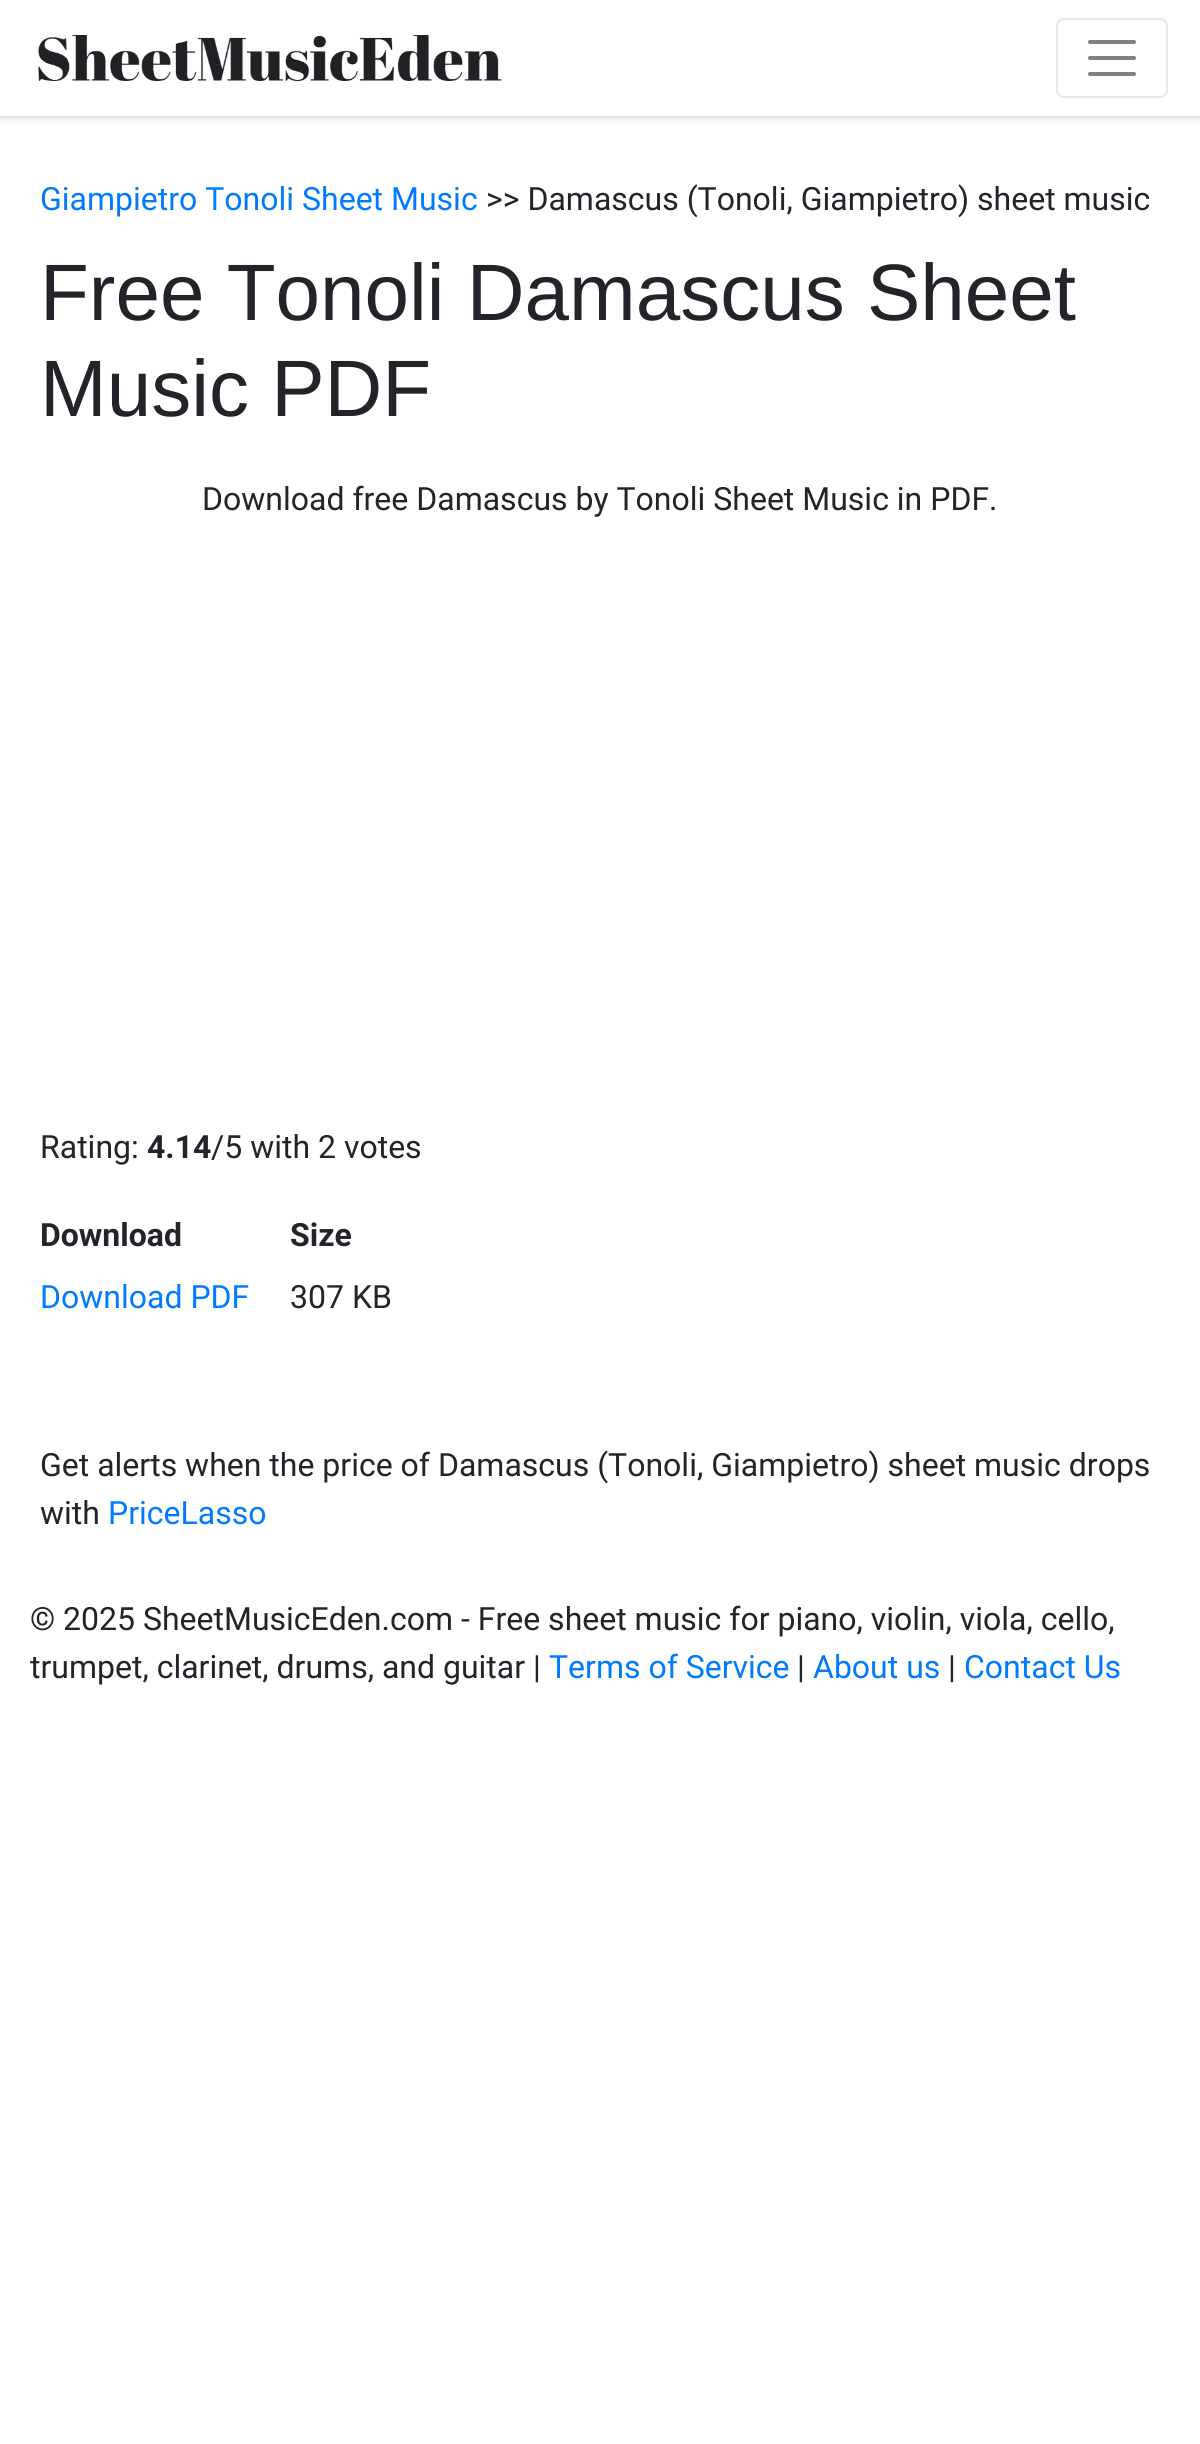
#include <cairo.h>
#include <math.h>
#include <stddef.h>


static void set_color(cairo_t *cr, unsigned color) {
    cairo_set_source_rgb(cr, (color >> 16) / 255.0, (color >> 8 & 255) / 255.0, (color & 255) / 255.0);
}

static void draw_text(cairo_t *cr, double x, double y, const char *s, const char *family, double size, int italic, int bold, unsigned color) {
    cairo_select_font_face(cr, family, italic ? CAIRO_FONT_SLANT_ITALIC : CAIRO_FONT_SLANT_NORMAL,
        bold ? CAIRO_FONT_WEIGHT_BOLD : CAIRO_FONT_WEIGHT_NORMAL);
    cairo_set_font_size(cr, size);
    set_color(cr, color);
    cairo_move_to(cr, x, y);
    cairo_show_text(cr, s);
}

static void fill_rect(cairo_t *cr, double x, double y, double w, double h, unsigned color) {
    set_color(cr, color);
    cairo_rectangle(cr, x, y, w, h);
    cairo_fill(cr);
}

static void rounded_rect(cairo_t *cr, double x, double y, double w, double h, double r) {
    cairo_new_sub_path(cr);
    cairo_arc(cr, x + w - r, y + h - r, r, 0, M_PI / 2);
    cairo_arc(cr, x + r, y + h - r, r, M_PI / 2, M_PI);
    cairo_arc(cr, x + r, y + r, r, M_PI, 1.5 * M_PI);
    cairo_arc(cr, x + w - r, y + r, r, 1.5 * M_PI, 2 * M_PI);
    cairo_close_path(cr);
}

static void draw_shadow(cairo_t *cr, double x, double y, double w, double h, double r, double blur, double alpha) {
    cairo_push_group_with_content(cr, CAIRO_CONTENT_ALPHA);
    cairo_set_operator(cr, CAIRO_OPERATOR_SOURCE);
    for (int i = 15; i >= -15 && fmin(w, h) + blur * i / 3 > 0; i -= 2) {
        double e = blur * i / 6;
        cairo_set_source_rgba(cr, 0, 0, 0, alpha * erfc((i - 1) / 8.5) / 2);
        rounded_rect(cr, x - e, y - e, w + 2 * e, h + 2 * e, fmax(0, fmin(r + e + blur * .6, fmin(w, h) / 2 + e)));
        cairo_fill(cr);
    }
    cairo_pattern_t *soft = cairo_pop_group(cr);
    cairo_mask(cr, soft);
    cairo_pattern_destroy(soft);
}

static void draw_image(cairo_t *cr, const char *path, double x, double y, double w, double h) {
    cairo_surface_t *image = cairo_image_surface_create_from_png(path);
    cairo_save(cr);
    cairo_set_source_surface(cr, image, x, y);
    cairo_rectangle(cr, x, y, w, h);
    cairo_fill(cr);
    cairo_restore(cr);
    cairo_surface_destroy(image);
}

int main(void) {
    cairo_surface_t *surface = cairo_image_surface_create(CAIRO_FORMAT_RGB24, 1200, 2444);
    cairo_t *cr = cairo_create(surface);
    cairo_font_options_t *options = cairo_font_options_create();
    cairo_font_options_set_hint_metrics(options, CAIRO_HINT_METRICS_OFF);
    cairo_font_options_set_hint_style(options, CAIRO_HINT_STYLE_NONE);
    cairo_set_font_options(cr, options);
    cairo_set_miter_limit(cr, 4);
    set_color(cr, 0xFFFFFF);
    cairo_paint(cr);
    cairo_save(cr);
    cairo_rectangle(cr, 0, 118, 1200, 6);
    cairo_clip(cr);
    set_color(cr, 0x000000);
    draw_shadow(cr, 0, 4, 1200, 118, 0, 4, 0.07);
    cairo_restore(cr);
    fill_rect(cr, 0, 116, 1200, 2, 0xDEE2E6);
    draw_image(cr, "assets/img1.png", 38, 35, 464, 46);
    rounded_rect(cr, 1057, 19, 110, 78, 7);
    set_color(cr, 0xE6E6E6);
    cairo_stroke(cr);
    cairo_new_path(cr);
    cairo_move_to(cr, 1090, 42);
    cairo_line_to(cr, 1134, 42);
    cairo_move_to(cr, 1090, 58);
    cairo_line_to(cr, 1134, 58);
    cairo_move_to(cr, 1090, 74);
    cairo_line_to(cr, 1134, 74);
    set_color(cr, 0x808080);
    cairo_set_line_width(cr, 4);
    cairo_set_line_cap(cr, CAIRO_LINE_CAP_ROUND);
    cairo_stroke(cr);
    draw_text(cr, 40, 210, "Giampietro Tonoli Sheet Music", "Roboto", 32, 0, 0, 0x007BFF);
    draw_text(cr, 486, 210, ">> Damascus (Tonoli, Giampietro) sheet music", "Roboto", 32, 0, 0, 0x212529);
    draw_text(cr, 40, 320, "Free Tonoli Damascus Sheet", "Liberation Sans", 80, 0, 0, 0x212529);
    draw_text(cr, 40, 416, "Music PDF", "Liberation Sans", 80, 0, 0, 0x212529);
    draw_text(cr, 202, 510, "Download free Damascus by Tonoli Sheet Music in PDF.", "Roboto", 32, 0, 0, 0x212529);
    draw_text(cr, 40, 1158, "Rating:", "Roboto", 32, 0, 0, 0x212529);
    draw_text(cr, 147, 1158, "4.14", "Roboto", 32, 0, 1, 0x212529);
    draw_text(cr, 211, 1158, "/5 with 2 votes", "Roboto", 32, 0, 0, 0x212529);
    draw_text(cr, 40, 1246, "Download", "Roboto", 32, 0, 1, 0x212529);
    draw_text(cr, 290, 1246, "Size", "Roboto", 32, 0, 1, 0x212529);
    draw_text(cr, 40, 1308, "Download PDF", "Roboto", 32, 0, 0, 0x007BFF);
    draw_text(cr, 290, 1308, "307 KB", "Roboto", 32, 0, 0, 0x212529);
    draw_text(cr, 40, 1476, "Get alerts when the price of Damascus (Tonoli, Giampietro) sheet music drops", "Roboto", 32, 0, 0, 0x212529);
    draw_text(cr, 40, 1524, "with", "Roboto", 32, 0, 0, 0x212529);
    draw_text(cr, 108, 1524, "PriceLasso", "Roboto", 32, 0, 0, 0x007BFF);
    draw_text(cr, 30, 1630, "© 2025 SheetMusicEden.com - Free sheet music for piano, violin, viola, cello,", "Roboto", 32, 0, 0, 0x212529);
    draw_text(cr, 30, 1678, "trumpet, clarinet, drums, and guitar |", "Roboto", 32, 0, 0, 0x212529);
    draw_text(cr, 549, 1678, "Terms of Service", "Roboto", 32, 0, 0, 0x007BFF);
    draw_text(cr, 797, 1678, "|", "Roboto", 32, 0, 0, 0x212529);
    draw_text(cr, 813, 1678, "About us", "Roboto", 32, 0, 0, 0x007BFF);
    draw_text(cr, 948, 1678, "|", "Roboto", 32, 0, 0, 0x212529);
    draw_text(cr, 964, 1678, "Contact Us", "Roboto", 32, 0, 0, 0x007BFF);
    cairo_surface_write_to_png(surface, "output.png");
    cairo_font_options_destroy(options);
    cairo_destroy(cr);
    cairo_surface_destroy(surface);
    return 0;
}
